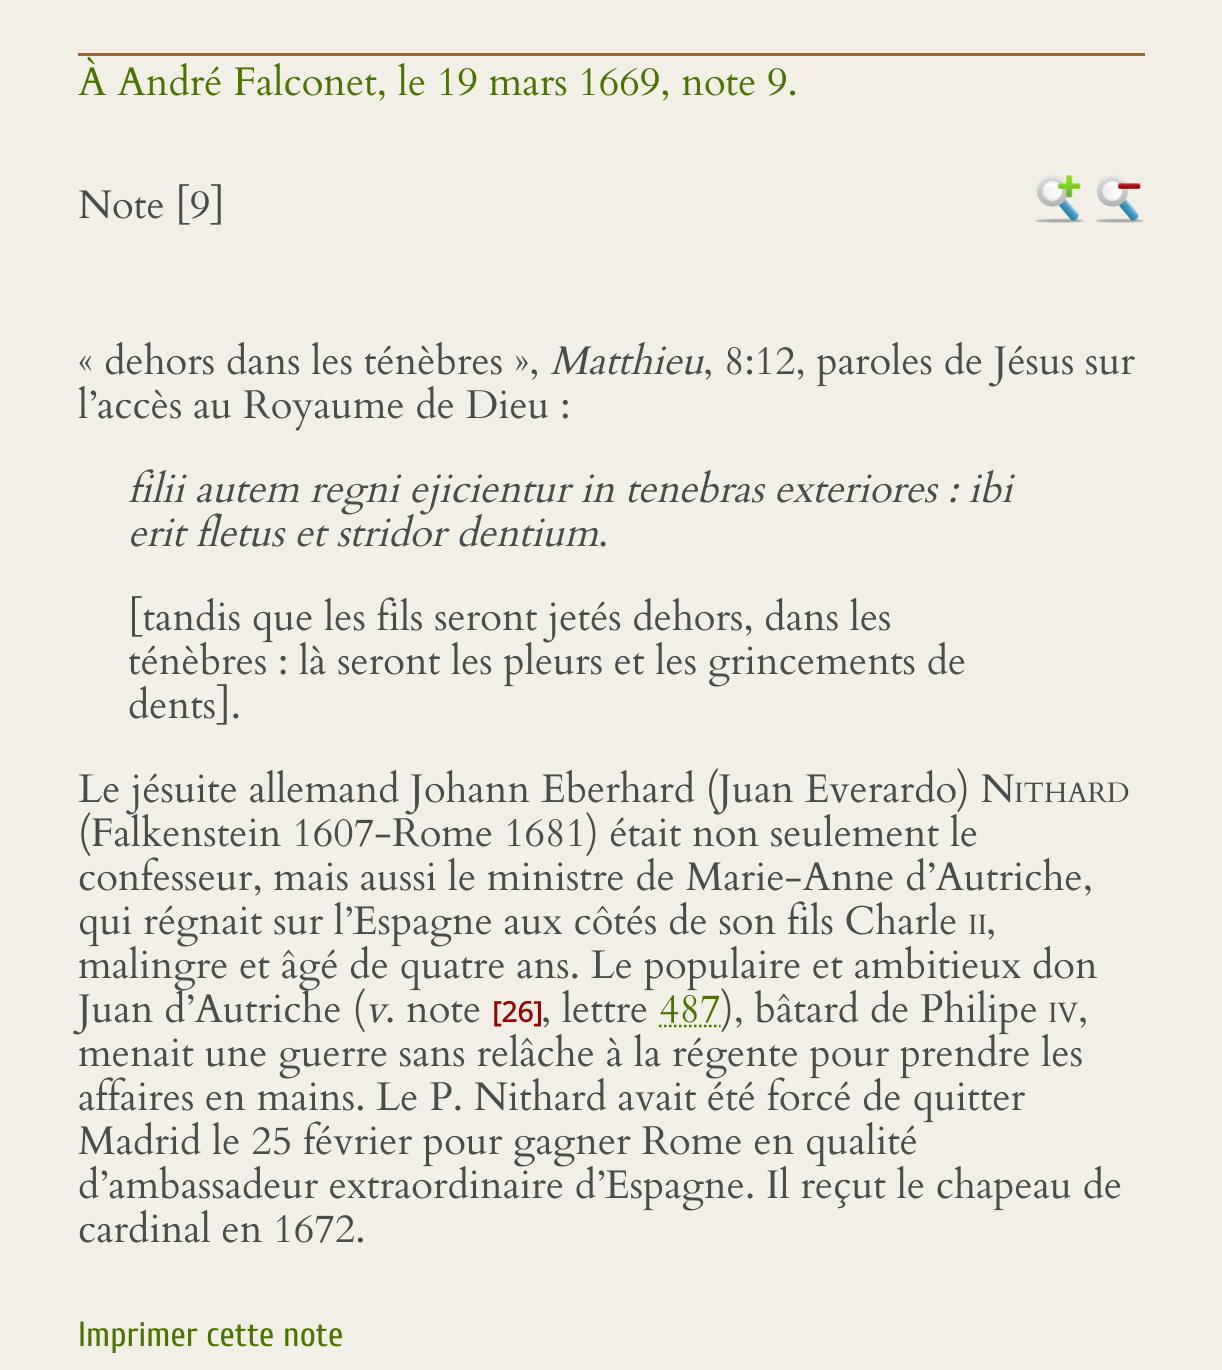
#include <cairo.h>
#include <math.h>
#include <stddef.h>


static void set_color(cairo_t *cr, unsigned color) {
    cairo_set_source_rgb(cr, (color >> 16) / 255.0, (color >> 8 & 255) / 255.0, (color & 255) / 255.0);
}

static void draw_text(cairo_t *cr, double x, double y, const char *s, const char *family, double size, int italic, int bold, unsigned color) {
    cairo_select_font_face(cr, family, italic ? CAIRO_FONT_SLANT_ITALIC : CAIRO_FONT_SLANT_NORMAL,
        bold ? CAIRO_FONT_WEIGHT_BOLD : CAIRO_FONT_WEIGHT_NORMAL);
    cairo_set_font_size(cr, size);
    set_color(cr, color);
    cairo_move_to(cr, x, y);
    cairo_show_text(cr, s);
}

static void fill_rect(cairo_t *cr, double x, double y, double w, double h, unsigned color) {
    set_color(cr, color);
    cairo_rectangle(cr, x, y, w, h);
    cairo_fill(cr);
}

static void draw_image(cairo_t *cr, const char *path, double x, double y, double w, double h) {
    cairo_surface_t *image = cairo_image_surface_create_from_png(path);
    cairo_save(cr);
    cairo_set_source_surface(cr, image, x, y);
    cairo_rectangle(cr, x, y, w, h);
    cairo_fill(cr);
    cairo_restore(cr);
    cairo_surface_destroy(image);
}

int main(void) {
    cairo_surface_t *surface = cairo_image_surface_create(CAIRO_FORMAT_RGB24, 1222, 1370);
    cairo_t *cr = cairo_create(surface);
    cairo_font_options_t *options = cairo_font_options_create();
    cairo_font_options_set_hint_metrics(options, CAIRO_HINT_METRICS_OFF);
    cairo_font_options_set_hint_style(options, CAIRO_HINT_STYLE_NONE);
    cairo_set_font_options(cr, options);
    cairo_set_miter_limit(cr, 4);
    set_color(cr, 0xF2EFE6);
    cairo_paint(cr);
    fill_rect(cr, 78, 53, 1067, 3, 0x996633);
    draw_text(cr, 78, 95, "À André Falconet, le 19 mars 1669, note 9.", "Cardo", 40, 0, 0, 0x4B7300);
    draw_text(cr, 78, 218, "Note [9]", "Cardo", 40, 0, 0, 0x4B4B4B);
    draw_image(cr, "assets/img1.png", 1035, 175, 49, 48);
    draw_image(cr, "assets/img2.png", 1095, 175, 49, 48);
    draw_text(cr, 78, 374, "« dehors dans les ténèbres »,", "Cardo", 40, 0, 0, 0x4B4B4B);
    draw_text(cr, 550, 374, "Matthieu", "Cardo", 40, 1, 0, 0x4B4B4B);
    draw_text(cr, 703, 374, ", 8:12, paroles de Jésus sur", "Cardo", 40, 0, 0, 0x4B4B4B);
    draw_text(cr, 78, 418, "l’accès au Royaume de Dieu :", "Cardo", 40, 0, 0, 0x4B4B4B);
    draw_text(cr, 128, 502, "filii autem regni ejicientur in tenebras exteriores : ibi", "Cardo", 40, 1, 0, 0x4B4B4B);
    draw_text(cr, 128, 546, "erit fletus et stridor dentium", "Cardo", 40, 1, 0, 0x4B4B4B);
    draw_text(cr, 598, 546, ".", "Cardo", 40, 0, 0, 0x4B4B4B);
    draw_text(cr, 128, 630, "[tandis que les fils seront jetés dehors, dans les", "Cardo", 40, 0, 0, 0x4B4B4B);
    draw_text(cr, 128, 674, "ténèbres : là seront les pleurs et les grincements de", "Cardo", 40, 0, 0, 0x4B4B4B);
    draw_text(cr, 128, 718, "dents].", "Cardo", 40, 0, 0, 0x4B4B4B);
    draw_text(cr, 78, 802, "Le jésuite allemand Johann Eberhard (Juan Everardo) N", "Cardo", 40, 0, 0, 0x4B4B4B);
    draw_text(cr, 1014, 802, "ITHARD", "Cardo", 28, 0, 0, 0x4B4B4B);
    draw_text(cr, 78, 846, "(Falkenstein 1607-Rome 1681) était non seulement le", "Cardo", 40, 0, 0, 0x4B4B4B);
    draw_text(cr, 78, 890, "confesseur, mais aussi le ministre de Marie-Anne d’Autriche,", "Cardo", 40, 0, 0, 0x4B4B4B);
    draw_text(cr, 78, 934, "qui régnait sur l’Espagne aux côtés de son fils Charle", "Cardo", 40, 0, 0, 0x4B4B4B);
    draw_text(cr, 968, 934, "II", "Cardo", 28, 0, 0, 0x4B4B4B);
    draw_text(cr, 986, 934, ",", "Cardo", 40, 0, 0, 0x4B4B4B);
    draw_text(cr, 78, 978, "malingre et âgé de quatre ans. Le populaire et ambitieux don", "Cardo", 40, 0, 0, 0x4B4B4B);
    draw_text(cr, 78, 1022, "Juan d’Autriche (", "Cardo", 40, 0, 0, 0x4B4B4B);
    draw_text(cr, 365, 1022, "v", "Cardo", 40, 1, 0, 0x4B4B4B);
    draw_text(cr, 385, 1022, ". note", "Cardo", 40, 0, 0, 0x4B4B4B);
    draw_text(cr, 492, 1022, "[26]", "Open Sans", 28, 0, 1, 0x990000);
    draw_text(cr, 541, 1022, ", lettre", "Cardo", 40, 0, 0, 0x4B4B4B);
    draw_text(cr, 659, 1022, "487", "Cardo", 40, 0, 0, 0x4B7300);
    cairo_new_path(cr);
    cairo_move_to(cr, 659, 1026);
    cairo_line_to(cr, 720.5, 1026);
    cairo_set_line_width(cr, 2.5);
    cairo_set_dash(cr, (double[]){2.5, 2.5}, 2, 0);
    cairo_stroke(cr);
    draw_text(cr, 721, 1022, "), bâtard de Philipe", "Cardo", 40, 0, 0, 0x4B4B4B);
    draw_text(cr, 1048, 1022, "IV", "Cardo", 28, 0, 0, 0x4B4B4B);
    draw_text(cr, 1078, 1022, ",", "Cardo", 40, 0, 0, 0x4B4B4B);
    draw_text(cr, 78, 1066, "menait une guerre sans relâche à la régente pour prendre les", "Cardo", 40, 0, 0, 0x4B4B4B);
    draw_text(cr, 78, 1110, "affaires en mains. Le P. Nithard avait été forcé de quitter", "Cardo", 40, 0, 0, 0x4B4B4B);
    draw_text(cr, 78, 1154, "Madrid le 25 février pour gagner Rome en qualité", "Cardo", 40, 0, 0, 0x4B4B4B);
    draw_text(cr, 78, 1198, "d’ambassadeur extraordinaire d’Espagne. Il reçut le chapeau de", "Cardo", 40, 0, 0, 0x4B4B4B);
    draw_text(cr, 78, 1242, "cardinal en 1672.", "Cardo", 40, 0, 0, 0x4B4B4B);
    draw_text(cr, 78, 1346, "Imprimer cette note", "Cuprum", 35, 0, 0, 0x4B7300);
    cairo_surface_write_to_png(surface, "output.png");
    cairo_font_options_destroy(options);
    cairo_destroy(cr);
    cairo_surface_destroy(surface);
    return 0;
}
